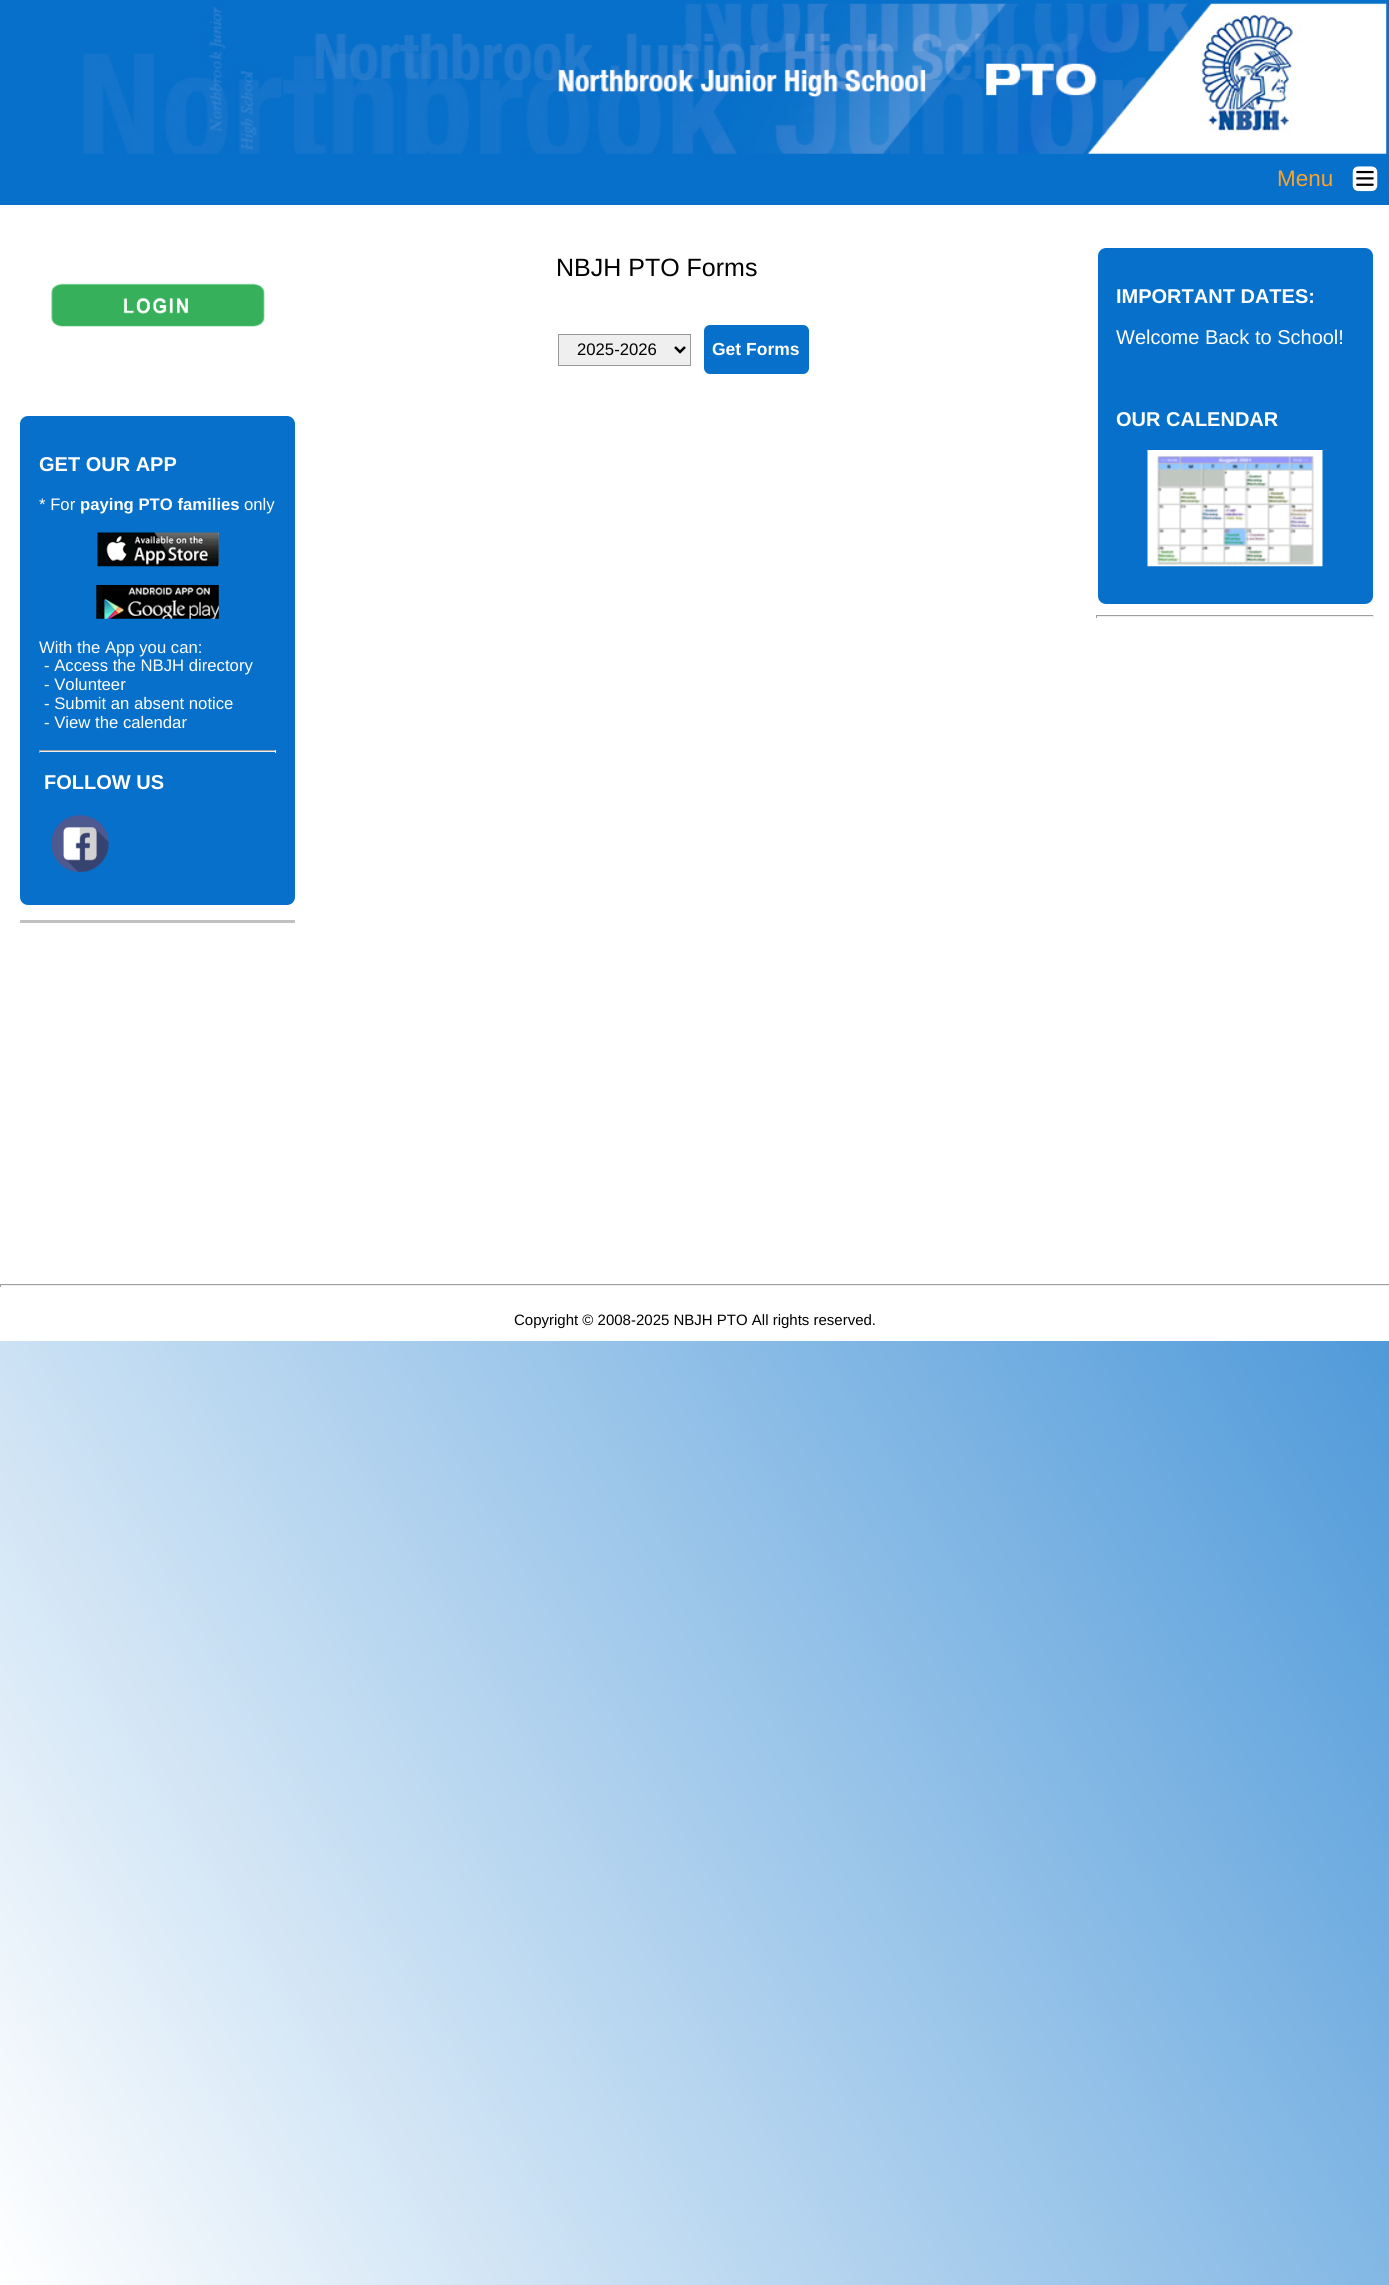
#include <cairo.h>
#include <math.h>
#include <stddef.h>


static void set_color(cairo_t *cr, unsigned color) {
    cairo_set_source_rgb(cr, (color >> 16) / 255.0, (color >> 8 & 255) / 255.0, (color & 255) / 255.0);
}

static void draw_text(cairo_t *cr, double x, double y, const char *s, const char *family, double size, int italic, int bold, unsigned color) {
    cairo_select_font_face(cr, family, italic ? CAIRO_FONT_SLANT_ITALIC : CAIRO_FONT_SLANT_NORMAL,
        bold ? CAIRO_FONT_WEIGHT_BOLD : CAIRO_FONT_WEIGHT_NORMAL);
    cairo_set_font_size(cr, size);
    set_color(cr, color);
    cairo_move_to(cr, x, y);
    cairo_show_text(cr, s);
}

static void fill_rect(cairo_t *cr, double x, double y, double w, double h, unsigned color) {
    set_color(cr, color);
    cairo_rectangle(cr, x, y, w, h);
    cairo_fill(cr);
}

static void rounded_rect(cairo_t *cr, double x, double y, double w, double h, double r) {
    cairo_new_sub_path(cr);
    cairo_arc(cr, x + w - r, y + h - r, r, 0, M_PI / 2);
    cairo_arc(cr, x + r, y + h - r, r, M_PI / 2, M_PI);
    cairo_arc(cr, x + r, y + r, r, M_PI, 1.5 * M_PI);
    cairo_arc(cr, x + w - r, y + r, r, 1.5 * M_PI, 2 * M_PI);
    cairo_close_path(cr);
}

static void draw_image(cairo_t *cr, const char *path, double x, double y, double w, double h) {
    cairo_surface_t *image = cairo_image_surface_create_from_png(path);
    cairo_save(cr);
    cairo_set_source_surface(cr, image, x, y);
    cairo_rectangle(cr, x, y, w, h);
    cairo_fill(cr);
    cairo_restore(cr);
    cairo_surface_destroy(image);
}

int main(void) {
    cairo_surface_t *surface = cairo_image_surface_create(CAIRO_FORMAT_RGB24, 1389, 2285);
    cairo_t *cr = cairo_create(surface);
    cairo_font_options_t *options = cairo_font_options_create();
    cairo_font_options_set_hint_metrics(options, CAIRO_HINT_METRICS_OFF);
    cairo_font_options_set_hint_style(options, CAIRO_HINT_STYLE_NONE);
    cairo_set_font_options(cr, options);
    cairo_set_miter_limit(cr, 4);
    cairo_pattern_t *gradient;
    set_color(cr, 0xFFFFFF);
    cairo_paint(cr);
    gradient = cairo_pattern_create_linear(-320, 1760, 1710, 525);
    cairo_pattern_add_color_stop_rgba(gradient, 0, 1, 1, 1, 1);
    cairo_pattern_add_color_stop_rgba(gradient, 1, 0.027, 0.439, 0.792, 1);
    cairo_set_source(cr, gradient);
    cairo_pattern_destroy(gradient);
    cairo_rectangle(cr, 0, 1341, 1389, 944);
    cairo_fill(cr);
    fill_rect(cr, 0, 0, 1389, 205, 0x0770CA);
    draw_image(cr, "assets/img1.png", 83, 3, 1304, 151);
    draw_text(cr, 1277, 186, "Menu", "Liberation Sans", 22.5, 0, 0, 0xF6A431);
    draw_image(cr, "assets/img2.png", 1352, 166, 26, 26);
    draw_text(cr, 556, 276, "NBJH PTO Forms", "Liberation Sans", 25, 0, 0, 0x000000);
    set_color(cr, 0xEFEFEF);
    cairo_rectangle(cr, 558.5, 334.5, 132, 31);
    cairo_fill_preserve(cr);
    set_color(cr, 0x999999);
    cairo_set_line_width(cr, 1);
    cairo_stroke(cr);
    cairo_new_path(cr);
    cairo_move_to(cr, 675, 347);
    cairo_line_to(cr, 680, 352);
    cairo_line_to(cr, 685, 347);
    set_color(cr, 0x000000);
    cairo_set_line_width(cr, 2.5);
    cairo_stroke(cr);
    draw_text(cr, 577, 355, "2025-2026", "Liberation Sans", 16.7, 0, 0, 0x000000);
    set_color(cr, 0x0770CA);
    rounded_rect(cr, 704, 325, 105, 49, 6);
    cairo_fill(cr);
    draw_text(cr, 712, 355, "Get Forms", "Liberation Sans", 17.5, 0, 1, 0xFFFFFF);
    set_color(cr, 0x0770CA);
    rounded_rect(cr, 1098, 248, 275, 356, 8);
    cairo_fill(cr);
    draw_text(cr, 1116, 303, "IMPORTANT DATES:", "Liberation Sans", 20, 0, 1, 0xFFFFFF);
    draw_text(cr, 1116, 344, "Welcome Back to School!", "Liberation Sans", 20, 0, 0, 0xFFFFFF);
    draw_text(cr, 1116, 426, "OUR CALENDAR", "Liberation Sans", 20, 0, 1, 0xFFFFFF);
    draw_image(cr, "assets/img3.png", 1147, 450, 176, 117);
    fill_rect(cr, 1096, 615, 278, 1, 0x9F9F9F);
    fill_rect(cr, 1373, 615, 1, 3, 0xEEEEEE);
    fill_rect(cr, 1096, 616, 278, 1, 0xEEEEEE);
    fill_rect(cr, 1096, 615, 1, 3, 0x9F9F9F);
    draw_image(cr, "assets/img4.png", 51, 283, 214, 44);
    set_color(cr, 0x0770CA);
    rounded_rect(cr, 20, 416, 275, 489, 8);
    cairo_fill(cr);
    draw_text(cr, 39, 471, "GET OUR APP", "Liberation Sans", 20, 0, 1, 0xFFFFFF);
    draw_text(cr, 39, 510, "* For", "Liberation Sans", 16.7, 0, 0, 0xFFFFFF);
    draw_text(cr, 80, 510, "paying PTO families", "Liberation Sans", 16.7, 0, 1, 0xFFFFFF);
    draw_text(cr, 244, 510, "only", "Liberation Sans", 16.7, 0, 0, 0xFFFFFF);
    draw_image(cr, "assets/img5.png", 97, 532, 122, 35);
    draw_image(cr, "assets/img6.png", 96, 585, 123, 34);
    draw_text(cr, 39, 653, "With the App you can:", "Liberation Sans", 16.7, 0, 0, 0xFFFFFF);
    draw_text(cr, 44, 671, "- Access the NBJH directory", "Liberation Sans", 16.7, 0, 0, 0xFFFFFF);
    draw_text(cr, 44, 690, "- Volunteer", "Liberation Sans", 16.7, 0, 0, 0xFFFFFF);
    draw_text(cr, 44, 709, "- Submit an absent notice", "Liberation Sans", 16.7, 0, 0, 0xFFFFFF);
    draw_text(cr, 44, 728, "- View the calendar", "Liberation Sans", 16.7, 0, 0, 0xFFFFFF);
    fill_rect(cr, 39, 750, 237, 1, 0x9F9F9F);
    fill_rect(cr, 275, 750, 1, 3, 0xEEEEEE);
    fill_rect(cr, 39, 751, 237, 1, 0xEEEEEE);
    fill_rect(cr, 39, 750, 1, 3, 0x9F9F9F);
    draw_text(cr, 44, 789, "FOLLOW US", "Liberation Sans", 20, 0, 1, 0xFFFFFF);
    draw_image(cr, "assets/img7.png", 51, 814, 58, 59);
    fill_rect(cr, 20, 920, 275, 3, 0xC0C0C0);
    fill_rect(cr, 0, 1284, 1389, 1, 0x9F9F9F);
    fill_rect(cr, 0, 1285, 1389, 1, 0xEEEEEE);
    fill_rect(cr, 0, 1284, 1, 3, 0x9F9F9F);
    draw_text(cr, 514, 1325, "Copyright © 2008-2025 NBJH PTO All rights reserved.", "Liberation Sans", 15, 0, 0, 0x000000);
    cairo_surface_write_to_png(surface, "output.png");
    cairo_font_options_destroy(options);
    cairo_destroy(cr);
    cairo_surface_destroy(surface);
    return 0;
}
